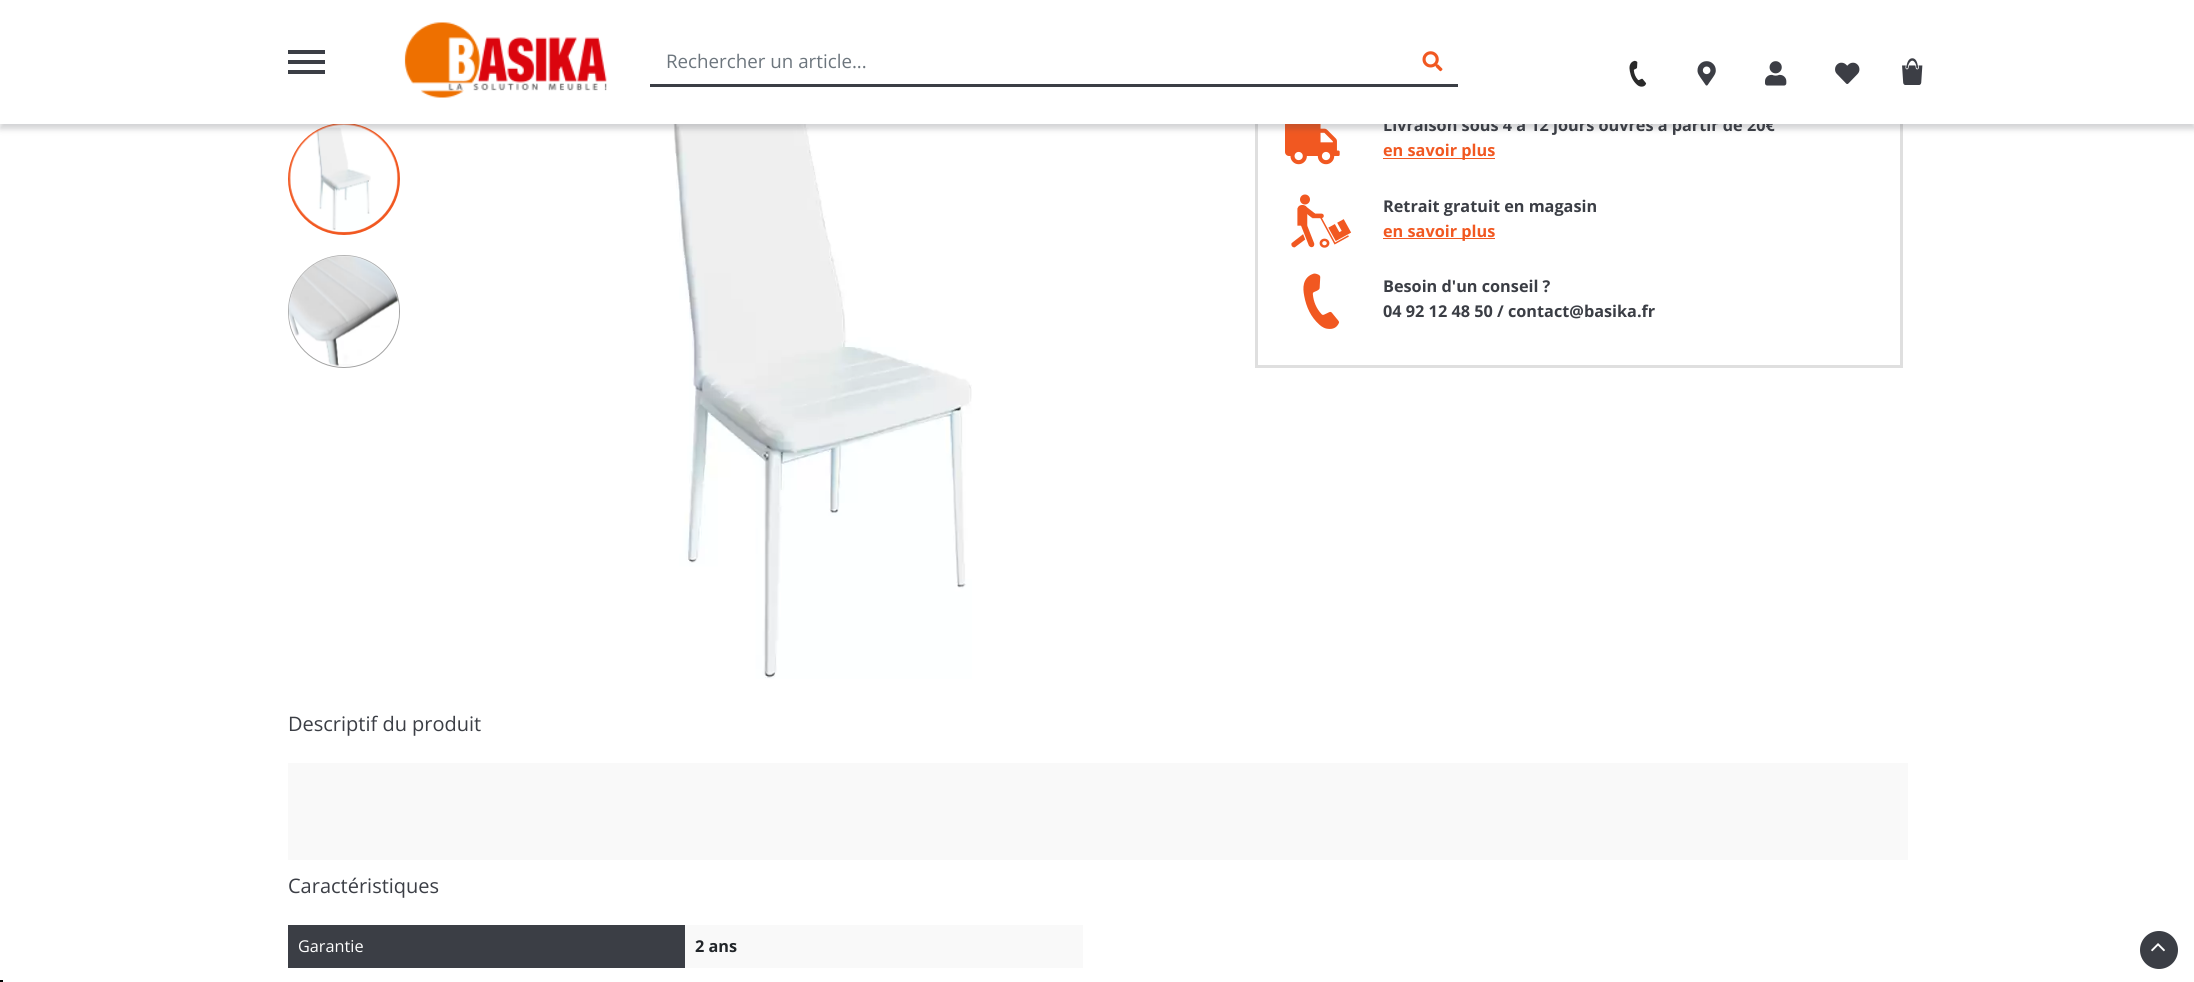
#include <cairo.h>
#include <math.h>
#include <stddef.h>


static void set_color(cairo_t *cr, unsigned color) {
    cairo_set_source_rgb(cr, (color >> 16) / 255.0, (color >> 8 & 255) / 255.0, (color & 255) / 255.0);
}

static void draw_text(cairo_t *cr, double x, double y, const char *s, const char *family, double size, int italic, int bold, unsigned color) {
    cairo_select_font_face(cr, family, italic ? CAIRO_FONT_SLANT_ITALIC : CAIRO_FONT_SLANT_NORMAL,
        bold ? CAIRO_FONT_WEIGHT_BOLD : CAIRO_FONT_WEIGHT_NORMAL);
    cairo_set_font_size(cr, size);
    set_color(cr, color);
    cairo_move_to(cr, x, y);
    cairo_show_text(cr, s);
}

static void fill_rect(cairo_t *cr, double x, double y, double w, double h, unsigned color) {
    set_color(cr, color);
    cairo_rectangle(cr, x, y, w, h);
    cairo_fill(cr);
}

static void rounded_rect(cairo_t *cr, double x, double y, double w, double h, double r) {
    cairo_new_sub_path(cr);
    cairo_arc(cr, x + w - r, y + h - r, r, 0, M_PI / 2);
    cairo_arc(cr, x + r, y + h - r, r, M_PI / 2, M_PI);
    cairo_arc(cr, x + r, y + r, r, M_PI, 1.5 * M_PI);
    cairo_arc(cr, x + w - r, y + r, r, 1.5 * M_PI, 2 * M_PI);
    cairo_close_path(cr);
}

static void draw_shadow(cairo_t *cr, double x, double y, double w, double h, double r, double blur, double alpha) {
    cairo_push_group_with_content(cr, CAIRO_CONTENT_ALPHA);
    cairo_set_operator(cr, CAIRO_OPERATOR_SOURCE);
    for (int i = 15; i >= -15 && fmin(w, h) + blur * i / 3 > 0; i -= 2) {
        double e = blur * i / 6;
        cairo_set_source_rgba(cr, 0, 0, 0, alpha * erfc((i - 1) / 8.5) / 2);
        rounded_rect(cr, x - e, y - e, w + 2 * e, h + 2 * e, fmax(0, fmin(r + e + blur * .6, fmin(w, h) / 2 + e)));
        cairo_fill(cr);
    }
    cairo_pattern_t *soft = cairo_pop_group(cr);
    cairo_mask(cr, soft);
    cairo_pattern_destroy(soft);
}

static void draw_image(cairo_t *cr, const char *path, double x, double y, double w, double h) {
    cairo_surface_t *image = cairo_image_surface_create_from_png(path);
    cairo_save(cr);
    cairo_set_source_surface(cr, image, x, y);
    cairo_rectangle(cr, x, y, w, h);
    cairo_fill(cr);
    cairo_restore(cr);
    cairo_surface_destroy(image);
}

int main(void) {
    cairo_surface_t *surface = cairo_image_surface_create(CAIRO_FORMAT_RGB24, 2194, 982);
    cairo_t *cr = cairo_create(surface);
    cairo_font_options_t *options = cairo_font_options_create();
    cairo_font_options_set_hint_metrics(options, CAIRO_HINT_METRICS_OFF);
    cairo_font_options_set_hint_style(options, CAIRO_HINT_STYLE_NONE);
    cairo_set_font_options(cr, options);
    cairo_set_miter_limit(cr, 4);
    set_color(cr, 0xFFFFFF);
    cairo_paint(cr);
    cairo_arc(cr, 344, 179, 54.5, 0, 2 * M_PI);
    set_color(cr, 0xF15821);
    cairo_set_line_width(cr, 3);
    cairo_stroke(cr);
    draw_image(cr, "assets/img8.png", 289, 124, 109, 109);
    draw_image(cr, "assets/img10.png", 673, 124, 299, 555);
    fill_rect(cr, 1900, 124, 3, 244, 0xDFDFDF);
    fill_rect(cr, 1255, 365, 648, 3, 0xDFDFDF);
    fill_rect(cr, 1255, 124, 3, 244, 0xDFDFDF);
    draw_image(cr, "assets/img11.png", 1285, 124, 55, 41);
    set_color(cr, 0x3B3E45);
    draw_shadow(cr, 0, 5, 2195, 124, 0, 3, 0.23);
    draw_text(cr, 1383, 131, "Livraison sous 4 à 12 jours ouvrés à partir de 20€", "Open Sans", 16.25, 0, 1, 0x3B3E45);
    fill_rect(cr, 0, 0, 2194, 124, 0xFFFFFF);
    fill_rect(cr, 288, 50, 37, 4, 0x3B3E45);
    fill_rect(cr, 288, 60, 37, 4, 0x3B3E45);
    fill_rect(cr, 288, 70, 37, 4, 0x3B3E45);
    draw_image(cr, "assets/img1.png", 404, 22, 203, 76);
    fill_rect(cr, 650, 84, 808, 3, 0x3B3E45);
    draw_text(cr, 666, 68, "Rechercher un article...", "Open Sans", 18.75, 0, 0, 0x6C757D);
    draw_image(cr, "assets/img2.png", 1422, 51, 21, 21);
    draw_image(cr, "assets/img3.png", 1629, 60, 18, 27);
    draw_image(cr, "assets/img4.png", 1697, 61, 19, 25);
    draw_image(cr, "assets/img5.png", 1765, 61, 22, 25);
    draw_image(cr, "assets/img6.png", 1835, 62, 25, 22);
    draw_image(cr, "assets/img7.png", 1902, 58, 21, 27);
    rounded_rect(cr, 288.5, 255.5, 111, 112, 55.5);
    set_color(cr, 0xA3A3A3);
    cairo_set_line_width(cr, 1);
    cairo_stroke(cr);
    draw_image(cr, "assets/img9.png", 288, 255, 111, 111);
    fill_rect(cr, 1383, 158, 112, 1, 0xF15821);
    draw_text(cr, 1383, 156, "en savoir plus", "Open Sans", 16.25, 0, 1, 0xF15821);
    draw_image(cr, "assets/img12.png", 1291, 194, 61, 54);
    draw_text(cr, 1383, 212, "Retrait gratuit en magasin", "Open Sans", 16.25, 0, 1, 0x3B3E45);
    fill_rect(cr, 1383, 238, 112, 1, 0xF15821);
    draw_text(cr, 1383, 237, "en savoir plus", "Open Sans", 16.25, 0, 1, 0xF15821);
    draw_image(cr, "assets/img13.png", 1303, 273, 37, 56);
    draw_text(cr, 1383, 292, "Besoin d'un conseil ?", "Open Sans", 16.25, 0, 1, 0x3B3E45);
    draw_text(cr, 1383, 317, "04 92 12 48 50 / contact@basika.fr", "Open Sans", 16.25, 0, 1, 0x3B3E45);
    draw_text(cr, 288, 731, "Descriptif du produit", "Open Sans", 20, 0, 0, 0x3B3E45);
    fill_rect(cr, 288, 763, 1620, 97, 0xF9F9F9);
    draw_text(cr, 288, 893, "Caractéristiques", "Open Sans", 20, 0, 0, 0x3B3E45);
    fill_rect(cr, 288, 925, 397, 43, 0x3B3E45);
    draw_text(cr, 298, 952, "Garantie", "Open Sans", 16.25, 0, 0, 0xFFFFFF);
    fill_rect(cr, 685, 925, 398, 43, 0xF9F9F9);
    draw_text(cr, 695, 952, "2 ans", "Open Sans", 16.25, 0, 1, 0x212529);
    set_color(cr, 0x3B3E45);
    cairo_new_path(cr);
    cairo_arc(cr, 2159, 950, 19, 0, 2 * M_PI);
    cairo_fill(cr);
    draw_image(cr, "assets/img14.png", 2151, 943, 14, 9);
    fill_rect(cr, 0, 980, 3, 2, 0x000000);
    cairo_surface_write_to_png(surface, "output.png");
    cairo_font_options_destroy(options);
    cairo_destroy(cr);
    cairo_surface_destroy(surface);
    return 0;
}
